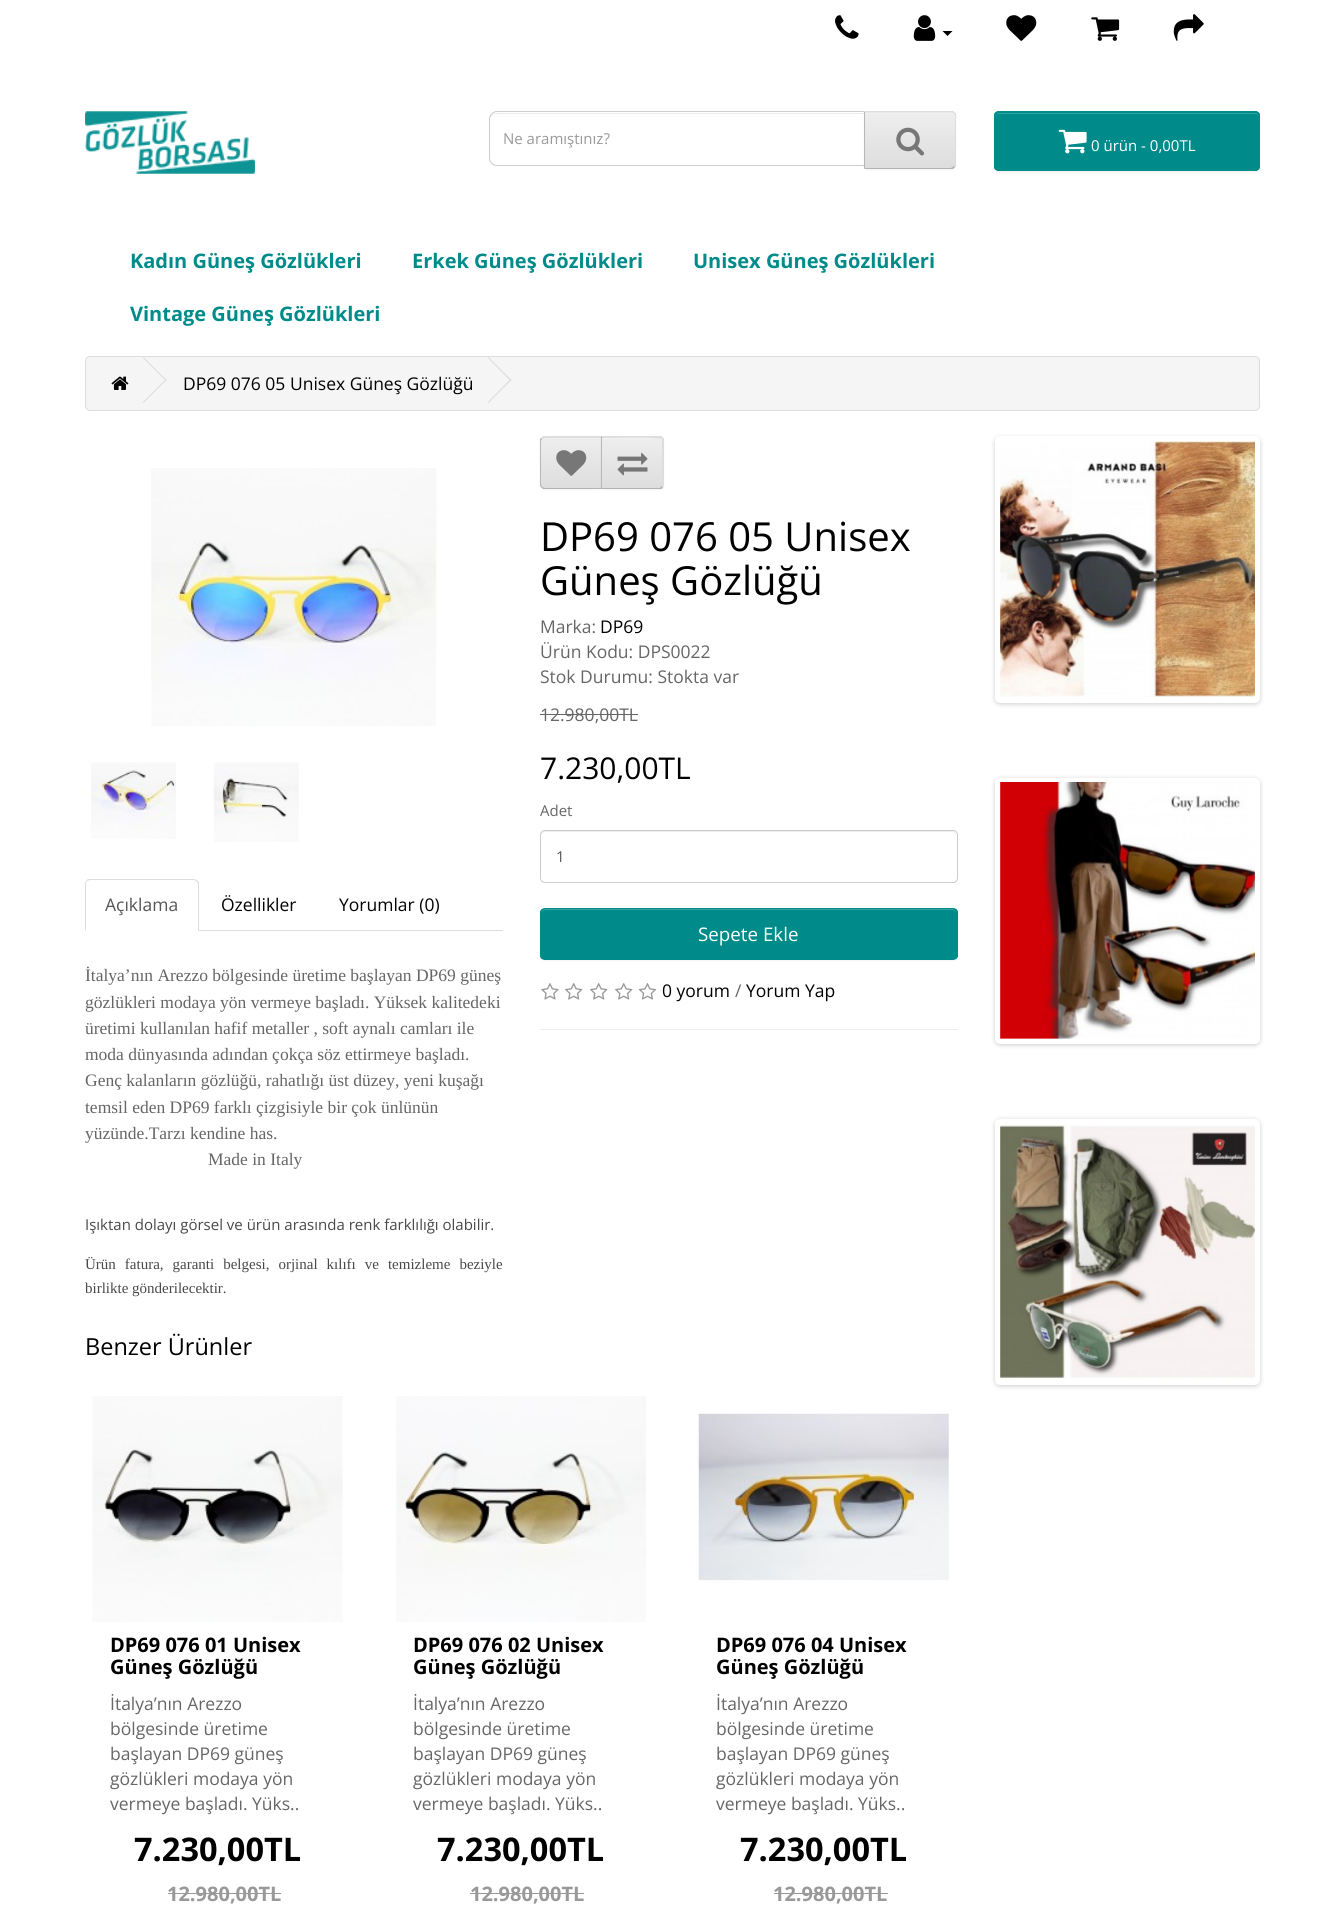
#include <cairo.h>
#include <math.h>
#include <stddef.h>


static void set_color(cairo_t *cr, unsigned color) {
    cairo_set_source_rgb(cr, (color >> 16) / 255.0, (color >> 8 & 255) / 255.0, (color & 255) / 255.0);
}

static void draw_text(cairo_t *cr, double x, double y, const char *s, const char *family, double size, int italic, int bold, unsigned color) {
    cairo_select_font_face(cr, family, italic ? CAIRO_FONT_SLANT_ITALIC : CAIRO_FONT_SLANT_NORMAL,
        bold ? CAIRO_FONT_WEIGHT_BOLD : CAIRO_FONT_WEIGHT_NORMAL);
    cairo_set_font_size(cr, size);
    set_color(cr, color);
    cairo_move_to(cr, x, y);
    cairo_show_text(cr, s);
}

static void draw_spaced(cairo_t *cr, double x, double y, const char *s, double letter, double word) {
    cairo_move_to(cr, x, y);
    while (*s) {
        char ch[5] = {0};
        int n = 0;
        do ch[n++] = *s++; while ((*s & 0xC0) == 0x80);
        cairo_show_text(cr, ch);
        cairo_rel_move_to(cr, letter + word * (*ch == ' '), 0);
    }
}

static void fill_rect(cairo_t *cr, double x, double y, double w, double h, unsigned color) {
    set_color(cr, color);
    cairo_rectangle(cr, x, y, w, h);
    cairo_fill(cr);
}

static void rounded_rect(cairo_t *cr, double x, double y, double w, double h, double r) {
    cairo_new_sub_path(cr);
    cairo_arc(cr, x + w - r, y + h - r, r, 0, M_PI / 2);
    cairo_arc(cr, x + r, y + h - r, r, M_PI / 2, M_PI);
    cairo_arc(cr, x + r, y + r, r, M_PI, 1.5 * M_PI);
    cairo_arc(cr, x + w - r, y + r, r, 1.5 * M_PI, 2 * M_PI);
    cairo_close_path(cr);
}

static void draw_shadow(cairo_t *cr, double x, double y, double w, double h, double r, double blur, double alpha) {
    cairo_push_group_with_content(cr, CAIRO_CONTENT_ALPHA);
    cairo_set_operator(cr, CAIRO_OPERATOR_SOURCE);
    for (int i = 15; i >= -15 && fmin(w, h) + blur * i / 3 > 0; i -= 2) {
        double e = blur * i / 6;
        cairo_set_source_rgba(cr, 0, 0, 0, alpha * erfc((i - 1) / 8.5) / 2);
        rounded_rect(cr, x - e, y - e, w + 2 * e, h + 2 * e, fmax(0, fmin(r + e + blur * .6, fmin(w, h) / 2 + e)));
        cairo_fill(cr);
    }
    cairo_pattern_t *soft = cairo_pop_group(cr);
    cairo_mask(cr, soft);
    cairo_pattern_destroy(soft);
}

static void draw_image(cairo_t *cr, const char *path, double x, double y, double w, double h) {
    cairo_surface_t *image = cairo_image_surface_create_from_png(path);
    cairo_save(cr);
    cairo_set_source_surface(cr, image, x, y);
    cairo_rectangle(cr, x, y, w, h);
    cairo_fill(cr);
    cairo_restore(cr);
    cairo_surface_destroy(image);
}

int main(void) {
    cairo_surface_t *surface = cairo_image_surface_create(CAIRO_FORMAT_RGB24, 1344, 1918);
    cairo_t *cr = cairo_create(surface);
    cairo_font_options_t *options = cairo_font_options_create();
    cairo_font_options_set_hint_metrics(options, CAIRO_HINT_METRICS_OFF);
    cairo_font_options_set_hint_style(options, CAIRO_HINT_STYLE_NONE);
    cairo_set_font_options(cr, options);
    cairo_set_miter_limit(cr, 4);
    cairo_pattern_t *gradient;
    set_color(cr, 0xFFFFFF);
    cairo_paint(cr);
    draw_image(cr, "assets/img1.png", 835, 15, 24, 24);
    draw_image(cr, "assets/img2.png", 913, 15, 23, 26);
    set_color(cr, 0x000000);
    cairo_new_path(cr);
    cairo_move_to(cr, 942.5, 31);
    cairo_line_to(cr, 952.5, 31);
    cairo_line_to(cr, 947.5, 36);
    cairo_close_path(cr);
    cairo_fill(cr);
    draw_image(cr, "assets/img3.png", 1006, 15, 31, 26);
    draw_image(cr, "assets/img4.png", 1091, 17, 29, 24);
    draw_image(cr, "assets/img5.png", 1173, 14, 31, 27);
    draw_image(cr, "assets/img6.png", 85, 111, 170, 63);
    set_color(cr, 0xECECEC);
    cairo_new_path(cr);
    cairo_move_to(cr, 496, 114);
    cairo_line_to(cr, 864, 114);
    cairo_line_to(cr, 864, 113);
    cairo_line_to(cr, 496, 113);
    cairo_curve_to(cr, 492, 113, 490, 116, 490, 120);
    cairo_curve_to(cr, 490, 117, 493, 114, 496, 114);
    cairo_close_path(cr);
    cairo_fill(cr);
    cairo_new_path(cr);
    cairo_move_to(cr, 497, 111.5);
    cairo_line_to(cr, 864.5, 111.5);
    cairo_line_to(cr, 864.5, 165.5);
    cairo_line_to(cr, 497, 165.5);
    cairo_curve_to(cr, 493, 165.5, 489.5, 162, 489.5, 158);
    cairo_line_to(cr, 489.5, 119);
    cairo_curve_to(cr, 489.5, 115, 493, 111.5, 497, 111.5);
    cairo_close_path(cr);
    set_color(cr, 0xCCCCCC);
    cairo_set_line_width(cr, 1);
    cairo_stroke(cr);
    draw_text(cr, 503, 144, "Ne aramıştınız?", "Open Sans", 15, 0, 0, 0x999999);
    set_color(cr, 0x000000);
    draw_shadow(cr, 864, 113, 92, 57, 5, 1, 0.05);
    set_color(cr, 0xE7E7E7);
    cairo_new_path(cr);
    cairo_move_to(cr, 864, 111);
    cairo_line_to(cr, 951, 111);
    cairo_curve_to(cr, 954, 111, 956, 113, 956, 116);
    cairo_line_to(cr, 956, 164);
    cairo_curve_to(cr, 956, 167, 954, 169, 951, 169);
    cairo_line_to(cr, 864, 169);
    cairo_close_path(cr);
    cairo_fill(cr);
    cairo_save(cr);
    cairo_new_path(cr);
    cairo_move_to(cr, 864, 111);
    cairo_line_to(cr, 951, 111);
    cairo_curve_to(cr, 954, 111, 956, 113, 956, 116);
    cairo_line_to(cr, 956, 164);
    cairo_curve_to(cr, 956, 167, 954, 169, 951, 169);
    cairo_line_to(cr, 864, 169);
    cairo_close_path(cr);
    cairo_clip(cr);
    gradient = cairo_pattern_create_linear(910, 113, 910, 168);
    cairo_pattern_add_color_stop_rgba(gradient, 0, 0.933, 0.933, 0.933, 1);
    cairo_pattern_add_color_stop_rgba(gradient, 1, 0.867, 0.867, 0.867, 1);
    cairo_set_source(cr, gradient);
    cairo_pattern_destroy(gradient);
    cairo_rectangle(cr, 865, 113, 91, 55);
    cairo_fill(cr);
    cairo_restore(cr);
    set_color(cr, 0xF1F1F1);
    cairo_new_path(cr);
    cairo_move_to(cr, 865, 114);
    cairo_line_to(cr, 951, 114);
    cairo_curve_to(cr, 953, 114, 955, 115, 955, 118);
    cairo_line_to(cr, 955, 117);
    cairo_curve_to(cr, 955, 115, 953, 113, 951, 113);
    cairo_line_to(cr, 865, 113);
    cairo_close_path(cr);
    cairo_fill(cr);
    set_color(cr, 0xDDDDDD);
    cairo_new_path(cr);
    cairo_move_to(cr, 865, 112);
    cairo_line_to(cr, 864, 111);
    cairo_line_to(cr, 953, 111);
    cairo_line_to(cr, 955, 113);
    cairo_line_to(cr, 954, 114);
    cairo_curve_to(cr, 953, 113, 952, 112, 951, 112);
    cairo_close_path(cr);
    cairo_fill(cr);
    cairo_new_path(cr);
    cairo_move_to(cr, 955, 113);
    cairo_curve_to(cr, 956, 113, 956, 115, 956, 116);
    cairo_line_to(cr, 956, 164);
    cairo_curve_to(cr, 956, 165, 956, 167, 955, 167);
    cairo_line_to(cr, 954, 166);
    cairo_line_to(cr, 955, 164);
    cairo_line_to(cr, 955, 116);
    cairo_line_to(cr, 954, 114);
    cairo_close_path(cr);
    cairo_fill(cr);
    set_color(cr, 0xB3B3B3);
    cairo_new_path(cr);
    cairo_move_to(cr, 864, 169);
    cairo_line_to(cr, 865, 168);
    cairo_line_to(cr, 951, 168);
    cairo_line_to(cr, 954, 166);
    cairo_line_to(cr, 955, 167);
    cairo_line_to(cr, 953, 169);
    cairo_close_path(cr);
    cairo_fill(cr);
    fill_rect(cr, 864, 112, 1, 56, 0xB7B7B7);
    draw_image(cr, "assets/img7.png", 896, 127, 29, 29);
    set_color(cr, 0x000000);
    draw_shadow(cr, 994, 113, 266, 60, 5, 1, 0.05);
    set_color(cr, 0x008B8B);
    rounded_rect(cr, 994, 111, 266, 60, 5);
    cairo_fill(cr);
    cairo_save(cr);
    rounded_rect(cr, 994, 111, 266, 60, 5);
    cairo_clip(cr);
    fill_rect(cr, 994, 113, 266, 57, 0x008B8B);
    cairo_restore(cr);
    set_color(cr, 0x33A2A2);
    cairo_new_path(cr);
    cairo_move_to(cr, 999, 114);
    cairo_line_to(cr, 1255, 114);
    cairo_curve_to(cr, 1257, 114, 1259, 115, 1259, 118);
    cairo_line_to(cr, 1259, 117);
    cairo_curve_to(cr, 1259, 115, 1257, 113, 1255, 113);
    cairo_line_to(cr, 999, 113);
    cairo_curve_to(cr, 997, 113, 995, 115, 995, 117);
    cairo_line_to(cr, 995, 118);
    cairo_curve_to(cr, 995, 115, 997, 114, 999, 114);
    cairo_close_path(cr);
    cairo_fill(cr);
    rounded_rect(cr, 994.5, 111.5, 265, 59, 4.5);
    set_color(cr, 0x008B8B);
    cairo_stroke(cr);
    draw_image(cr, "assets/img8.png", 1058, 129, 29, 25);
    draw_text(cr, 1091, 151, "0 ürün - 0,00TL", "Open Sans", 15, 0, 0, 0xFFFFFF);
    draw_text(cr, 130, 268, "Kadın Güneş Gözlükleri", "Open Sans", 20, 0, 1, 0x008B8B);
    draw_text(cr, 412, 268, "Erkek Güneş Gözlükleri", "Open Sans", 20, 0, 1, 0x008B8B);
    draw_text(cr, 693, 268, "Unisex Güneş Gözlükleri", "Open Sans", 20, 0, 1, 0x008B8B);
    draw_text(cr, 130, 321, "Vintage Güneş Gözlükleri", "Open Sans", 20, 0, 1, 0x008B8B);
    set_color(cr, 0xF5F5F5);
    rounded_rect(cr, 85.5, 356.5, 1174, 54, 4.5);
    cairo_fill_preserve(cr);
    set_color(cr, 0xDDDDDD);
    cairo_stroke(cr);
    draw_image(cr, "assets/img9.png", 111, 376, 18, 14);
    cairo_new_path(cr);
    cairo_move_to(cr, 143, 358);
    cairo_line_to(cr, 143.5, 357);
    cairo_line_to(cr, 166.5, 380);
    cairo_line_to(cr, 166, 381);
    cairo_close_path(cr);
    cairo_fill(cr);
    cairo_new_path(cr);
    cairo_move_to(cr, 143, 402);
    cairo_line_to(cr, 166, 379);
    cairo_line_to(cr, 166.5, 380);
    cairo_line_to(cr, 143.5, 403);
    cairo_close_path(cr);
    cairo_fill(cr);
    draw_text(cr, 183, 390, "DP69 076 05 Unisex Güneş Gözlüğü", "Open Sans", 17.5, 0, 0, 0x000000);
    set_color(cr, 0xDDDDDD);
    cairo_new_path(cr);
    cairo_move_to(cr, 488, 358);
    cairo_line_to(cr, 488.5, 357);
    cairo_line_to(cr, 511.5, 380);
    cairo_line_to(cr, 510.5, 381);
    cairo_close_path(cr);
    cairo_fill(cr);
    cairo_new_path(cr);
    cairo_move_to(cr, 488, 402);
    cairo_line_to(cr, 510.5, 379);
    cairo_line_to(cr, 511.5, 380);
    cairo_line_to(cr, 488.5, 403);
    cairo_close_path(cr);
    cairo_fill(cr);
    set_color(cr, 0x000000);
    draw_shadow(cr, 540, 438, 63, 52, 5, 1, 0.05);
    cairo_save(cr);
    cairo_new_path(cr);
    cairo_move_to(cr, 545, 436);
    cairo_line_to(cr, 603, 436);
    cairo_line_to(cr, 603, 489);
    cairo_line_to(cr, 545, 489);
    cairo_curve_to(cr, 542, 489, 540, 487, 540, 484);
    cairo_line_to(cr, 540, 441);
    cairo_curve_to(cr, 540, 438, 542, 436, 545, 436);
    cairo_close_path(cr);
    cairo_clip(cr);
    gradient = cairo_pattern_create_linear(571, 438, 571, 488);
    cairo_pattern_add_color_stop_rgba(gradient, 0, 0.933, 0.933, 0.933, 1);
    cairo_pattern_add_color_stop_rgba(gradient, 1, 0.867, 0.867, 0.867, 1);
    cairo_set_source(cr, gradient);
    cairo_pattern_destroy(gradient);
    cairo_rectangle(cr, 540, 438, 61, 50);
    cairo_fill(cr);
    cairo_restore(cr);
    set_color(cr, 0xF1F1F1);
    cairo_new_path(cr);
    cairo_move_to(cr, 545, 439);
    cairo_line_to(cr, 601, 439);
    cairo_line_to(cr, 601, 438);
    cairo_line_to(cr, 545, 438);
    cairo_curve_to(cr, 543, 438, 541, 440, 541, 442);
    cairo_curve_to(cr, 541, 440, 543, 439, 545, 439);
    cairo_close_path(cr);
    cairo_fill(cr);
    set_color(cr, 0xDDDDDD);
    cairo_new_path(cr);
    cairo_move_to(cr, 545, 438);
    cairo_line_to(cr, 542, 439);
    cairo_line_to(cr, 541, 438);
    cairo_line_to(cr, 543, 436);
    cairo_line_to(cr, 602, 436);
    cairo_line_to(cr, 601, 438);
    cairo_close_path(cr);
    cairo_fill(cr);
    set_color(cr, 0xB3B3B3);
    cairo_new_path(cr);
    cairo_move_to(cr, 543, 489);
    cairo_line_to(cr, 541, 487);
    cairo_line_to(cr, 542, 487);
    cairo_line_to(cr, 545, 488);
    cairo_line_to(cr, 601, 488);
    cairo_line_to(cr, 601, 487);
    cairo_line_to(cr, 602, 488);
    cairo_line_to(cr, 602, 489);
    cairo_close_path(cr);
    cairo_fill(cr);
    set_color(cr, 0xB7B7B7);
    cairo_new_path(cr);
    cairo_move_to(cr, 540, 441);
    cairo_line_to(cr, 540, 484);
    cairo_curve_to(cr, 540, 485, 540, 487, 541, 487);
    cairo_line_to(cr, 542, 487);
    cairo_line_to(cr, 541, 484);
    cairo_line_to(cr, 541, 441);
    cairo_line_to(cr, 542, 439);
    cairo_line_to(cr, 541, 438);
    cairo_curve_to(cr, 540, 438, 540, 440, 540, 441);
    cairo_close_path(cr);
    cairo_fill(cr);
    draw_image(cr, "assets/img10.png", 556, 450, 31, 26);
    set_color(cr, 0x000000);
    draw_shadow(cr, 601, 438, 63, 52, 5, 1, 0.05);
    cairo_save(cr);
    cairo_new_path(cr);
    cairo_move_to(cr, 601, 436);
    cairo_line_to(cr, 659, 436);
    cairo_curve_to(cr, 662, 436, 664, 438, 664, 441);
    cairo_line_to(cr, 664, 484);
    cairo_curve_to(cr, 664, 487, 662, 489, 659, 489);
    cairo_line_to(cr, 601, 489);
    cairo_close_path(cr);
    cairo_clip(cr);
    gradient = cairo_pattern_create_linear(633, 438, 633, 488);
    cairo_pattern_add_color_stop_rgba(gradient, 0, 0.933, 0.933, 0.933, 1);
    cairo_pattern_add_color_stop_rgba(gradient, 1, 0.867, 0.867, 0.867, 1);
    cairo_set_source(cr, gradient);
    cairo_pattern_destroy(gradient);
    cairo_rectangle(cr, 602, 438, 62, 50);
    cairo_fill(cr);
    cairo_restore(cr);
    cairo_set_source_rgba(cr, 1, 1, 1, 0.2);
    cairo_new_path(cr);
    cairo_move_to(cr, 603, 438);
    cairo_line_to(cr, 603, 439);
    cairo_line_to(cr, 650, 439);
    cairo_curve_to(cr, 651, 439, 662, 437, 662, 442);
    cairo_line_to(cr, 662, 487);
    cairo_curve_to(cr, 662, 486, 663, 485, 663, 484);
    cairo_line_to(cr, 663, 442);
    cairo_curve_to(cr, 663, 440, 661, 438, 659, 438);
    cairo_close_path(cr);
    cairo_fill(cr);
    set_color(cr, 0xDDDDDD);
    cairo_new_path(cr);
    cairo_move_to(cr, 601, 436);
    cairo_line_to(cr, 661, 436);
    cairo_line_to(cr, 663, 437);
    cairo_line_to(cr, 661, 439);
    cairo_curve_to(cr, 659, 437, 610, 438, 603, 438);
    cairo_close_path(cr);
    cairo_fill(cr);
    cairo_new_path(cr);
    cairo_move_to(cr, 664, 486);
    cairo_line_to(cr, 663, 488);
    cairo_line_to(cr, 661, 486);
    cairo_curve_to(cr, 663, 484, 662, 478, 662, 477);
    cairo_line_to(cr, 662, 440);
    cairo_line_to(cr, 661, 439);
    cairo_line_to(cr, 663, 437);
    cairo_line_to(cr, 664, 439);
    cairo_close_path(cr);
    cairo_fill(cr);
    set_color(cr, 0xB3B3B3);
    cairo_new_path(cr);
    cairo_move_to(cr, 663, 488);
    cairo_line_to(cr, 661, 489);
    cairo_line_to(cr, 601, 489);
    cairo_line_to(cr, 602, 488);
    cairo_line_to(cr, 660, 488);
    cairo_line_to(cr, 661, 486);
    cairo_close_path(cr);
    cairo_fill(cr);
    set_color(cr, 0xB7B7B7);
    cairo_new_path(cr);
    cairo_move_to(cr, 602, 438);
    cairo_line_to(cr, 603, 438);
    cairo_line_to(cr, 601, 436);
    cairo_line_to(cr, 601, 489);
    cairo_line_to(cr, 602, 488);
    cairo_close_path(cr);
    cairo_fill(cr);
    draw_image(cr, "assets/img11.png", 617, 452, 31, 24);
    draw_text(cr, 540, 551, "DP69 076 05 Unisex", "Open Sans", 40, 0, 0, 0x000000);
    draw_text(cr, 540, 595, "Güneş Gözlüğü", "Open Sans", 40, 0, 0, 0x000000);
    draw_text(cr, 540, 633, "Marka:", "Open Sans", 17.5, 0, 0, 0x666666);
    draw_text(cr, 600, 633, "DP69", "Open Sans", 17.5, 0, 0, 0x000000);
    draw_text(cr, 540, 658, "Ürün Kodu: DPS0022", "Open Sans", 17.5, 0, 0, 0x666666);
    draw_text(cr, 540, 683, "Stok Durumu: Stokta var", "Open Sans", 17.5, 0, 0, 0x666666);
    draw_text(cr, 540, 721, "12.980,00TL", "Open Sans", 17.5, 0, 0, 0x666666);
    fill_rect(cr, 540, 714, 98, 1, 0x666666);
    draw_text(cr, 540, 779, "7.230,00TL", "Open Sans", 30, 0, 0, 0x000000);
    draw_text(cr, 540, 816, "Adet", "Open Sans", 15, 0, 0, 0x666666);
    set_color(cr, 0xECECEC);
    cairo_new_path(cr);
    cairo_move_to(cr, 545, 832);
    cairo_line_to(cr, 952, 832);
    cairo_curve_to(cr, 955, 832, 956, 834, 956, 836);
    cairo_line_to(cr, 956, 835);
    cairo_curve_to(cr, 956, 833, 954, 831, 952, 831);
    cairo_line_to(cr, 545, 831);
    cairo_curve_to(cr, 543, 831, 541, 833, 541, 835);
    cairo_line_to(cr, 541, 836);
    cairo_curve_to(cr, 541, 834, 543, 832, 545, 832);
    cairo_close_path(cr);
    cairo_fill(cr);
    rounded_rect(cr, 540.5, 830.5, 417, 52, 4.5);
    set_color(cr, 0xCCCCCC);
    cairo_stroke(cr);
    draw_text(cr, 556, 862, "1", "Open Sans", 15, 0, 0, 0x555555);
    set_color(cr, 0x000000);
    draw_shadow(cr, 540, 909, 418, 52, 5, 1, 0.05);
    cairo_save(cr);
    rounded_rect(cr, 540, 908, 418, 52, 5);
    cairo_clip(cr);
    fill_rect(cr, 540, 909, 418, 50, 0x008B8B);
    cairo_restore(cr);
    set_color(cr, 0x33A2A2);
    cairo_new_path(cr);
    cairo_move_to(cr, 545, 910);
    cairo_line_to(cr, 952, 910);
    cairo_curve_to(cr, 955, 910, 956, 912, 956, 914);
    cairo_line_to(cr, 956, 913);
    cairo_curve_to(cr, 956, 911, 954, 909, 952, 909);
    cairo_line_to(cr, 545, 909);
    cairo_curve_to(cr, 543, 909, 541, 911, 541, 913);
    cairo_line_to(cr, 541, 914);
    cairo_curve_to(cr, 541, 912, 543, 910, 545, 910);
    cairo_close_path(cr);
    cairo_fill(cr);
    rounded_rect(cr, 540.5, 908.5, 417, 51, 4.5);
    set_color(cr, 0x008B8B);
    cairo_stroke(cr);
    draw_text(cr, 698, 941, "Sepete Ekle", "Open Sans", 18.75, 0, 0, 0xFFFFFF);
    draw_image(cr, "assets/img12.png", 541, 983, 18, 17);
    draw_image(cr, "assets/img13.png", 565, 983, 18, 17);
    draw_image(cr, "assets/img13.png", 590, 983, 18, 17);
    draw_image(cr, "assets/img13.png", 615, 983, 18, 17);
    draw_image(cr, "assets/img14.png", 638, 983, 19, 17);
    draw_text(cr, 662, 997, "0 yorum", "Open Sans", 17.5, 0, 0, 0x000000);
    draw_text(cr, 735, 997, "/", "Open Sans", 17.5, 0, 0, 0x666666);
    draw_text(cr, 746, 997, "Yorum Yap", "Open Sans", 17.5, 0, 0, 0x000000);
    fill_rect(cr, 540, 1029, 418, 1, 0xEEEEEE);
    draw_image(cr, "assets/img15.png", 151, 468, 286, 258);
    draw_image(cr, "assets/img16.png", 91, 762, 85, 77);
    draw_image(cr, "assets/img17.png", 213, 762, 86, 80);
    fill_rect(cr, 199, 930, 304, 1, 0xDDDDDD);
    cairo_new_path(cr);
    cairo_move_to(cr, 90, 879);
    cairo_curve_to(cr, 89, 879, 87, 879, 87, 880);
    cairo_line_to(cr, 87, 881);
    cairo_line_to(cr, 90, 880);
    cairo_line_to(cr, 194, 880);
    cairo_line_to(cr, 196, 881);
    cairo_line_to(cr, 197, 880);
    cairo_line_to(cr, 194, 879);
    cairo_close_path(cr);
    cairo_fill(cr);
    cairo_new_path(cr);
    cairo_move_to(cr, 197, 880);
    cairo_line_to(cr, 199, 882);
    cairo_line_to(cr, 199, 931);
    cairo_line_to(cr, 198, 930);
    cairo_line_to(cr, 198, 883);
    cairo_line_to(cr, 196, 881);
    cairo_close_path(cr);
    cairo_fill(cr);
    cairo_new_path(cr);
    cairo_move_to(cr, 85, 884);
    cairo_line_to(cr, 85, 931);
    cairo_line_to(cr, 86, 930);
    cairo_line_to(cr, 86, 883);
    cairo_line_to(cr, 87, 881);
    cairo_line_to(cr, 87, 880);
    cairo_curve_to(cr, 86, 881, 85, 882, 85, 884);
    cairo_close_path(cr);
    cairo_fill(cr);
    draw_text(cr, 105, 911, "Açıklama", "Open Sans", 17.5, 0, 0, 0x555555);
    draw_text(cr, 221, 911, "Özellikler", "Open Sans", 17.5, 0, 0, 0x000000);
    draw_text(cr, 339, 911, "Yorumlar (0)", "Open Sans", 17.5, 0, 0, 0x000000);
    draw_text(cr, 85, 981, "İtalya’nın Arezzo bölgesinde üretime başlayan DP69 güneş", "Liberation Serif", 17.5, 0, 0, 0x666666);
    draw_text(cr, 85, 1008, "gözlükleri modaya yön vermeye başladı. Yüksek kalitedeki", "Liberation Serif", 17.5, 0, 0, 0x666666);
    draw_text(cr, 85, 1034, "üretimi kullanılan hafif metaller , soft aynalı camları ile", "Liberation Serif", 17.5, 0, 0, 0x666666);
    draw_text(cr, 85, 1060, "moda dünyasında adından çokça söz ettirmeye başladı.", "Liberation Serif", 17.5, 0, 0, 0x666666);
    draw_text(cr, 85, 1086, "Genç kalanların gözlüğü, rahatlığı üst düzey, yeni kuşağı", "Liberation Serif", 17.5, 0, 0, 0x666666);
    draw_text(cr, 85, 1113, "temsil eden DP69 farklı çizgisiyle bir çok ünlünün", "Liberation Serif", 17.5, 0, 0, 0x666666);
    draw_text(cr, 85, 1139, "yüzünde.Tarzı kendine has.", "Liberation Serif", 17.5, 0, 0, 0x666666);
    draw_text(cr, 208, 1165, "Made in Italy", "Liberation Serif", 17.5, 0, 0, 0x666666);
    draw_text(cr, 85, 1230, "Işıktan dolayı görsel ve ürün arasında renk farklılığı olabilir.", "Open Sans", 15, 0, 0, 0x484848);
    cairo_select_font_face(cr, "Liberation Serif", CAIRO_FONT_SLANT_NORMAL, CAIRO_FONT_WEIGHT_NORMAL);
    draw_spaced(cr, 85, 1269, "Ürün fatura, garanti belgesi, orjinal kılıfı ve temizleme beziyle", 0, 5.25);
    draw_text(cr, 85, 1293, "birlikte gönderilecektir.", "Liberation Serif", 15, 0, 0, 0x484848);
    draw_text(cr, 85, 1355, "Benzer Ürünler", "Open Sans", 23.5, 0, 0, 0x000000);
    draw_image(cr, "assets/img18.png", 92, 1396, 251, 226);
    draw_text(cr, 110, 1652, "DP69 076 01 Unisex", "Open Sans", 20, 0, 1, 0x000000);
    draw_text(cr, 110, 1674, "Güneş Gözlüğü", "Open Sans", 20, 0, 1, 0x000000);
    draw_text(cr, 110, 1710, "İtalya’nın Arezzo", "Open Sans", 17.5, 0, 0, 0x666666);
    draw_text(cr, 110, 1735, "bölgesinde üretime", "Open Sans", 17.5, 0, 0, 0x666666);
    draw_text(cr, 110, 1760, "başlayan DP69 güneş", "Open Sans", 17.5, 0, 0, 0x666666);
    draw_text(cr, 110, 1785, "gözlükleri modaya yön", "Open Sans", 17.5, 0, 0, 0x666666);
    draw_text(cr, 110, 1810, "vermeye başladı. Yüks..", "Open Sans", 17.5, 0, 0, 0x666666);
    draw_text(cr, 134, 1861, "7.230,00TL", "Open Sans", 32.5, 0, 1, 0x000000);
    draw_text(cr, 167, 1901, "12.980,00TL", "Open Sans", 20, 0, 1, 0x999999);
    fill_rect(cr, 168, 1893, 113, 1, 0x999999);
    draw_image(cr, "assets/img19.png", 396, 1396, 250, 226);
    draw_text(cr, 413, 1652, "DP69 076 02 Unisex", "Open Sans", 20, 0, 1, 0x000000);
    draw_text(cr, 413, 1674, "Güneş Gözlüğü", "Open Sans", 20, 0, 1, 0x000000);
    draw_text(cr, 413, 1710, "İtalya’nın Arezzo", "Open Sans", 17.5, 0, 0, 0x666666);
    draw_text(cr, 413, 1735, "bölgesinde üretime", "Open Sans", 17.5, 0, 0, 0x666666);
    draw_text(cr, 413, 1760, "başlayan DP69 güneş", "Open Sans", 17.5, 0, 0, 0x666666);
    draw_text(cr, 413, 1785, "gözlükleri modaya yön", "Open Sans", 17.5, 0, 0, 0x666666);
    draw_text(cr, 413, 1810, "vermeye başladı. Yüks..", "Open Sans", 17.5, 0, 0, 0x666666);
    draw_text(cr, 437, 1861, "7.230,00TL", "Open Sans", 32.5, 0, 1, 0x000000);
    draw_text(cr, 470, 1901, "12.980,00TL", "Open Sans", 20, 0, 1, 0x999999);
    fill_rect(cr, 470, 1893, 114, 1, 0x999999);
    draw_image(cr, "assets/img20.png", 698, 1413, 251, 168);
    draw_text(cr, 716, 1652, "DP69 076 04 Unisex", "Open Sans", 20, 0, 1, 0x000000);
    draw_text(cr, 716, 1674, "Güneş Gözlüğü", "Open Sans", 20, 0, 1, 0x000000);
    draw_text(cr, 716, 1710, "İtalya’nın Arezzo", "Open Sans", 17.5, 0, 0, 0x666666);
    draw_text(cr, 716, 1735, "bölgesinde üretime", "Open Sans", 17.5, 0, 0, 0x666666);
    draw_text(cr, 716, 1760, "başlayan DP69 güneş", "Open Sans", 17.5, 0, 0, 0x666666);
    draw_text(cr, 716, 1785, "gözlükleri modaya yön", "Open Sans", 17.5, 0, 0, 0x666666);
    draw_text(cr, 716, 1810, "vermeye başladı. Yüks..", "Open Sans", 17.5, 0, 0, 0x666666);
    draw_text(cr, 740, 1861, "7.230,00TL", "Open Sans", 32.5, 0, 1, 0x000000);
    draw_text(cr, 773, 1901, "12.980,00TL", "Open Sans", 20, 0, 1, 0x999999);
    fill_rect(cr, 774, 1893, 114, 1, 0x999999);
    set_color(cr, 0x000000);
    draw_shadow(cr, 995, 438, 265, 266, 5, 2.5, 0.2);
    set_color(cr, 0xFFFFFF);
    rounded_rect(cr, 997.5, 438.5, 260, 262, 2.5);
    cairo_fill_preserve(cr);
    cairo_set_line_width(cr, 5);
    cairo_stroke(cr);
    draw_image(cr, "assets/img21.png", 1000, 441, 255, 256);
    set_color(cr, 0x000000);
    draw_shadow(cr, 995, 779, 265, 266, 5, 2.5, 0.2);
    set_color(cr, 0xFFFFFF);
    rounded_rect(cr, 997.5, 780.5, 260, 261, 2.5);
    cairo_fill_preserve(cr);
    cairo_stroke(cr);
    draw_image(cr, "assets/img22.png", 1000, 782, 255, 257);
    set_color(cr, 0x000000);
    draw_shadow(cr, 995, 1120, 265, 266, 5, 2.5, 0.2);
    set_color(cr, 0xFFFFFF);
    rounded_rect(cr, 997.5, 1121.5, 260, 261, 2.5);
    cairo_fill_preserve(cr);
    cairo_stroke(cr);
    draw_image(cr, "assets/img23.png", 1000, 1124, 255, 256);
    cairo_surface_write_to_png(surface, "output.png");
    cairo_font_options_destroy(options);
    cairo_destroy(cr);
    cairo_surface_destroy(surface);
    return 0;
}
